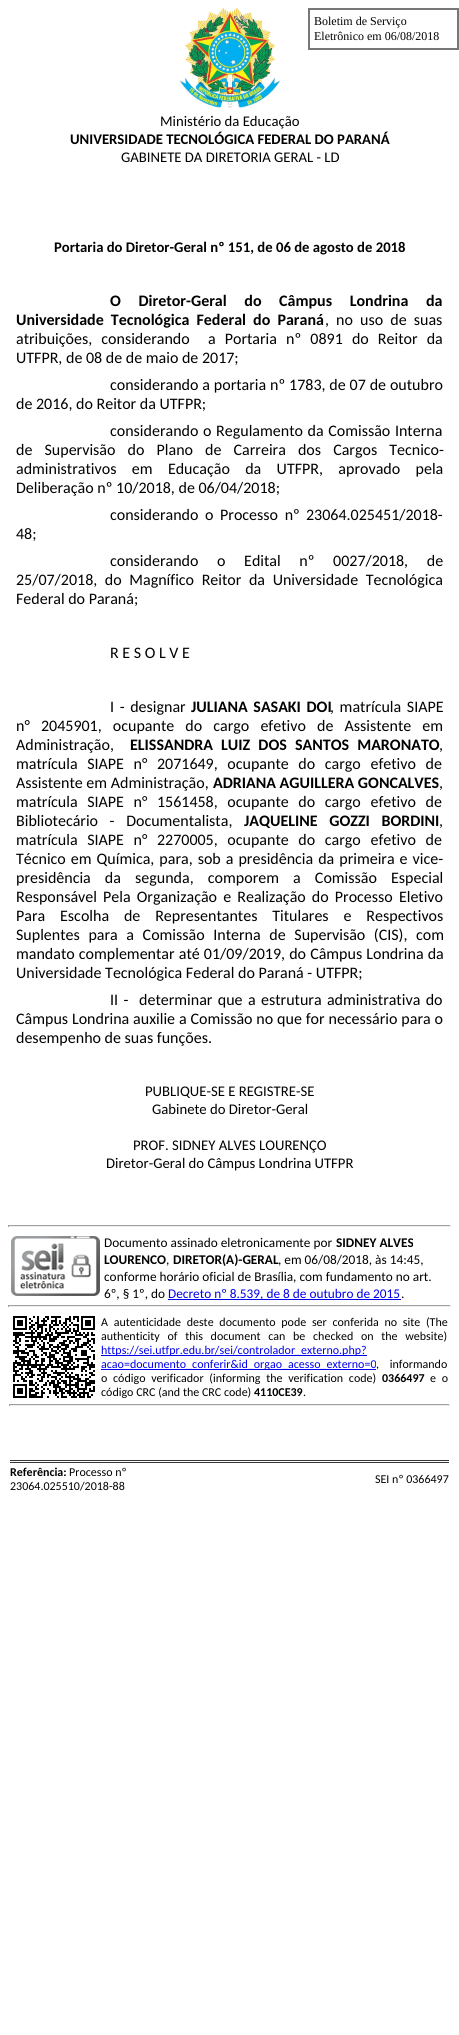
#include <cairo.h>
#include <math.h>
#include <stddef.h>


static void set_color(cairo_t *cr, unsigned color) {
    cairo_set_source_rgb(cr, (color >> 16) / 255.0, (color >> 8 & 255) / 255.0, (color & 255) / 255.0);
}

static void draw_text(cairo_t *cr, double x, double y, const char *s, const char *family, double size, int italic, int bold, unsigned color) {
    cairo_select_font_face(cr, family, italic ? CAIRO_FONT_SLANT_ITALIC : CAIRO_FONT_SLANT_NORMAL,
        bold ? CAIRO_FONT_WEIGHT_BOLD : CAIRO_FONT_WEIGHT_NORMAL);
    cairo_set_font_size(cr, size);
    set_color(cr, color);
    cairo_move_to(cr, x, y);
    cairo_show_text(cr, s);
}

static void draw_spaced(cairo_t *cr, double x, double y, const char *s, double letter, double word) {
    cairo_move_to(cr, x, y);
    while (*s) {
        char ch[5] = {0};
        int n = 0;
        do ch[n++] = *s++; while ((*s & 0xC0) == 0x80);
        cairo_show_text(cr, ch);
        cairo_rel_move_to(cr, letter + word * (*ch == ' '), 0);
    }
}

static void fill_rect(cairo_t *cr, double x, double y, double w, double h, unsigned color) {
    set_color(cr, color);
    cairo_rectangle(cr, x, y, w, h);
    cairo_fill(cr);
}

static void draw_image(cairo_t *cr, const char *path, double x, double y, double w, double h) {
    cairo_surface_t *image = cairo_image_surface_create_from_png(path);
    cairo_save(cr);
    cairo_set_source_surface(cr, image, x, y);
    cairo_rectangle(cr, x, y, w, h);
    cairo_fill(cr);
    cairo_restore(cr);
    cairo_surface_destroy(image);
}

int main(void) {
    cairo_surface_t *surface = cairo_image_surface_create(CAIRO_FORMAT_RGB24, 459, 2035);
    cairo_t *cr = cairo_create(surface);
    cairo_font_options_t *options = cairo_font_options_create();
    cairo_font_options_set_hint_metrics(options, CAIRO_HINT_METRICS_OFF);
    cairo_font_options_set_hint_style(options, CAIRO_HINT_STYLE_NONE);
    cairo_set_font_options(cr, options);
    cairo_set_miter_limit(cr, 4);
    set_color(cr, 0xFFFFFF);
    cairo_paint(cr);
    draw_image(cr, "assets/img1.png", 180, 8, 100, 100);
    cairo_rectangle(cr, 309, 9, 149, 40);
    set_color(cr, 0x777777);
    cairo_stroke(cr);
    draw_text(cr, 314, 25, "Boletim de Serviço", "Liberation Serif", 12, 0, 0, 0x000000);
    draw_text(cr, 314, 40, "Eletrônico em 06/08/2018", "Liberation Serif", 12, 0, 0, 0x000000);
    draw_text(cr, 160, 126, "Ministério da Educação", "Carlito", 14.7, 0, 0, 0x000000);
    draw_text(cr, 70, 144, "UNIVERSIDADE TECNOLÓGICA FEDERAL DO PARANÁ", "Carlito", 14.7, 0, 1, 0x000000);
    draw_text(cr, 121, 162, "GABINETE DA DIRETORIA GERAL - LD", "Carlito", 14.7, 0, 0, 0x000000);
    draw_text(cr, 54, 252, "Portaria do Diretor-Geral nº 151, de 06 de agosto de 2018", "Carlito", 14.7, 0, 1, 0x000000);
    cairo_set_font_size(cr, 16);
    draw_spaced(cr, 110, 306, "O Diretor-Geral do Câmpus Londrina da", 0, 14);
    draw_spaced(cr, 16, 325, "Universidade Tecnológica Federal do Paraná", 0, 3.5);
    cairo_select_font_face(cr, "Carlito", CAIRO_FONT_SLANT_NORMAL, CAIRO_FONT_WEIGHT_NORMAL);
    draw_spaced(cr, 325, 325, ", no uso de suas", 0, 3.5);
    draw_spaced(cr, 16, 344, "atribuições, considerando  a Portaria nº 0891 do Reitor da", 0, 5.5);
    draw_text(cr, 16, 363, "UTFPR, de 08 de de maio de 2017;", "Carlito", 16, 0, 0, 0x000000);
    draw_spaced(cr, 110, 390, "considerando a portaria nº 1783, de 07 de outubro", 0, 0.25);
    draw_text(cr, 16, 409, "de 2016, do Reitor da UTFPR;", "Carlito", 16, 0, 0, 0x000000);
    draw_spaced(cr, 110, 436, "considerando o Regulamento da Comissão Interna", 0, 1);
    draw_spaced(cr, 16, 455, "de Supervisão do Plano de Carreira dos Cargos Tecnico-", 0, 8.5);
    draw_spaced(cr, 16, 474, "administrativos em Educação da UTFPR, aprovado pela", 0, 11.75);
    draw_text(cr, 16, 493, "Deliberação nº 10/2018, de 06/04/2018;", "Carlito", 16, 0, 0, 0x000000);
    draw_spaced(cr, 110, 520, "considerando o Processo nº", 0, 3);
    draw_text(cr, 306, 520, "23064.025451/2018-", "Carlito", 16, 0, 0, 0x000000);
    draw_text(cr, 16, 539, "48;", "Carlito", 16, 0, 0, 0x000000);
    draw_spaced(cr, 110, 566, "considerando o Edital nº 0027/2018, de", 0, 15);
    draw_spaced(cr, 16, 585, "25/07/2018, do Magnífico Reitor da Universidade Tecnológica", 0, 4);
    draw_text(cr, 16, 604, "Federal do Paraná;", "Carlito", 16, 0, 0, 0x000000);
    draw_text(cr, 110, 658, "R E S O L V E", "Carlito", 16, 0, 0, 0x000000);
    draw_spaced(cr, 110, 712, "I - designar", 0, 2);
    cairo_select_font_face(cr, "Carlito", CAIRO_FONT_SLANT_NORMAL, CAIRO_FONT_WEIGHT_BOLD);
    draw_spaced(cr, 191, 712, "JULIANA SASAKI DOI", 0, 2);
    cairo_select_font_face(cr, "Carlito", CAIRO_FONT_SLANT_NORMAL, CAIRO_FONT_WEIGHT_NORMAL);
    draw_spaced(cr, 330, 712, ", matrícula SIAPE", 0, 2);
    draw_spaced(cr, 16, 731, "n° 2045901, ocupante do cargo efetivo de Assistente em", 0, 7.5);
    draw_text(cr, 16, 750, "Administração,", "Carlito", 16, 0, 0, 0x000000);
    cairo_select_font_face(cr, "Carlito", CAIRO_FONT_SLANT_NORMAL, CAIRO_FONT_WEIGHT_BOLD);
    draw_spaced(cr, 130, 750, "ELISSANDRA LUIZ DOS SANTOS MARONATO", 0, 4.5);
    draw_text(cr, 439, 750, ",", "Carlito", 16, 0, 0, 0x000000);
    draw_spaced(cr, 16, 769, "matrícula SIAPE n° 2071649, ocupante do cargo efetivo de", 0, 6);
    draw_text(cr, 16, 788, "Assistente em Administração,", "Carlito", 16, 0, 0, 0x000000);
    draw_text(cr, 213, 788, "ADRIANA AGUILLERA GONCALVES", "Carlito", 16, 0, 1, 0x000000);
    draw_text(cr, 439, 788, ",", "Carlito", 16, 0, 0, 0x000000);
    draw_spaced(cr, 16, 807, "matrícula SIAPE n° 1561458, ocupante do cargo efetivo de", 0, 6);
    draw_spaced(cr, 16, 826, "Bibliotecário - Documentalista,", 0, 8);
    cairo_select_font_face(cr, "Carlito", CAIRO_FONT_SLANT_NORMAL, CAIRO_FONT_WEIGHT_BOLD);
    draw_spaced(cr, 244, 826, "JAQUELINE GOZZI BORDINI", 0, 8);
    draw_text(cr, 439, 826, ",", "Carlito", 16, 0, 0, 0x000000);
    draw_spaced(cr, 16, 845, "matrícula SIAPE n° 2270005, ocupante do cargo efetivo de", 0, 6);
    draw_spaced(cr, 16, 864, "Técnico em Química, para, sob a presidência da primeira e vice-", 0, 1.4);
    draw_spaced(cr, 16, 883, "presidência da segunda, comporem a Comissão Especial", 0, 10.5);
    draw_spaced(cr, 16, 902, "Responsável Pela Organização e Realização do Processo Eletivo", 0, 2.5);
    draw_spaced(cr, 16, 921, "Para Escolha de Representantes Titulares e Respectivos", 0, 11.25);
    draw_spaced(cr, 16, 940, "Suplentes para a Comissão Interna de Supervisão (CIS), com", 0, 5);
    draw_spaced(cr, 16, 959, "mandato complementar até 01/09/2019, do Câmpus Londrina da", 0, 0.5);
    draw_text(cr, 16, 978, "Universidade Tecnológica Federal do Paraná - UTFPR;", "Carlito", 16, 0, 0, 0x000000);
    draw_spaced(cr, 110, 1005, "II -  determinar que a estrutura administrativa do", 0, 1.75);
    draw_spaced(cr, 16, 1024, "Câmpus Londrina auxilie a Comissão no que for necessário para o", 0, 0.25);
    draw_text(cr, 16, 1043, "desempenho de suas funções.", "Carlito", 16, 0, 0, 0x000000);
    draw_text(cr, 145, 1096, "PUBLIQUE-SE E REGISTRE-SE", "Carlito", 14.7, 0, 0, 0x000000);
    draw_text(cr, 152, 1114, "Gabinete do Diretor-Geral", "Carlito", 14.7, 0, 0, 0x000000);
    draw_text(cr, 133, 1150, "PROF. SIDNEY ALVES LOURENÇO", "Carlito", 14.7, 0, 0, 0x000000);
    draw_text(cr, 106, 1168, "Diretor-Geral do Câmpus Londrina UTFPR", "Carlito", 14.7, 0, 0, 0x000000);
    fill_rect(cr, 8, 1225, 443, 1, 0x9F9F9F);
    fill_rect(cr, 450, 1225, 1, 2, 0xEEEEEE);
    fill_rect(cr, 8, 1226, 443, 1, 0xEEEEEE);
    fill_rect(cr, 8, 1225, 1, 2, 0x9F9F9F);
    draw_image(cr, "assets/img2.png", 11, 1236, 89, 60);
    draw_text(cr, 104, 1247, "Documento assinado eletronicamente por", "Carlito", 13.3, 0, 0, 0x000000);
    draw_text(cr, 336, 1247, "SIDNEY ALVES", "Carlito", 13.3, 0, 1, 0x000000);
    draw_text(cr, 104, 1264, "LOURENCO", "Carlito", 13.3, 0, 1, 0x000000);
    draw_text(cr, 166, 1264, ",", "Carlito", 13.3, 0, 0, 0x000000);
    draw_text(cr, 173, 1264, "DIRETOR(A)-GERAL", "Carlito", 13.3, 0, 1, 0x000000);
    draw_text(cr, 278, 1264, ", em 06/08/2018, às 14:45,", "Carlito", 13.3, 0, 0, 0x000000);
    draw_text(cr, 104, 1281, "conforme horário oficial de Brasília, com fundamento no art.", "Carlito", 13.3, 0, 0, 0x000000);
    draw_text(cr, 104, 1298, "6º, § 1º, do", "Carlito", 13.3, 0, 0, 0x000000);
    fill_rect(cr, 168, 1299, 233, 1, 0x0000EE);
    draw_text(cr, 168, 1298, "Decreto nº 8.539, de 8 de outubro de 2015", "Carlito", 13.3, 0, 0, 0x0000EE);
    draw_text(cr, 401, 1298, ".", "Carlito", 13.3, 0, 0, 0x000000);
    fill_rect(cr, 8, 1305, 443, 1, 0x9F9F9F);
    fill_rect(cr, 450, 1305, 1, 2, 0xEEEEEE);
    fill_rect(cr, 8, 1306, 443, 1, 0xEEEEEE);
    fill_rect(cr, 8, 1305, 1, 2, 0x9F9F9F);
    draw_image(cr, "assets/img3.png", 13, 1316, 82, 82);
    cairo_set_font_size(cr, 12);
    set_color(cr, 0x000000);
    draw_spaced(cr, 101, 1326, "A autenticidade deste documento pode ser conferida no site (The", 0, 3);
    draw_spaced(cr, 101, 1340, "authenticity of this document can be checked on the website)", 0, 5);
    fill_rect(cr, 101, 1355, 266, 1, 0x0000EE);
    draw_text(cr, 101, 1354, "https://sei.utfpr.edu.br/sei/controlador_externo.php?", "Carlito", 12, 0, 0, 0x0000EE);
    fill_rect(cr, 101, 1369, 275, 1, 0x0000EE);
    draw_text(cr, 101, 1368, "acao=documento_conferir&id_orgao_acesso_externo=0", "Carlito", 12, 0, 0, 0x0000EE);
    set_color(cr, 0x000000);
    draw_spaced(cr, 376, 1368, ", informando", 0, 8);
    draw_spaced(cr, 101, 1382, "o código verificador (informing the verification code)", 0, 3);
    draw_text(cr, 382, 1382, "0366497", "Carlito", 12, 0, 1, 0x000000);
    cairo_select_font_face(cr, "Carlito", CAIRO_FONT_SLANT_NORMAL, CAIRO_FONT_WEIGHT_NORMAL);
    draw_spaced(cr, 430, 1382, "e o", 0, 3);
    draw_text(cr, 101, 1396, "código CRC (and the CRC code)", "Carlito", 12, 0, 0, 0x000000);
    draw_text(cr, 254, 1396, "4110CE39", "Carlito", 12, 0, 1, 0x000000);
    draw_text(cr, 303, 1396, ".", "Carlito", 12, 0, 0, 0x000000);
    fill_rect(cr, 9, 1404, 441, 1, 0x9F9F9F);
    fill_rect(cr, 449, 1404, 1, 2, 0xEEEEEE);
    fill_rect(cr, 9, 1405, 441, 1, 0xEEEEEE);
    fill_rect(cr, 9, 1404, 1, 2, 0x9F9F9F);
    fill_rect(cr, 10, 1460, 439, 1, 0x333333);
    fill_rect(cr, 10, 1462, 439, 1, 0x333333);
    draw_text(cr, 10, 1476, "Referência:", "Carlito", 12, 0, 1, 0x000000);
    draw_text(cr, 69, 1476, "Processo nº", "Carlito", 12, 0, 0, 0x000000);
    draw_text(cr, 10, 1490, "23064.025510/2018-88", "Carlito", 12, 0, 0, 0x000000);
    draw_text(cr, 375, 1483, "SEI nº 0366497", "Carlito", 12, 0, 0, 0x000000);
    cairo_surface_write_to_png(surface, "output.png");
    cairo_font_options_destroy(options);
    cairo_destroy(cr);
    cairo_surface_destroy(surface);
    return 0;
}
